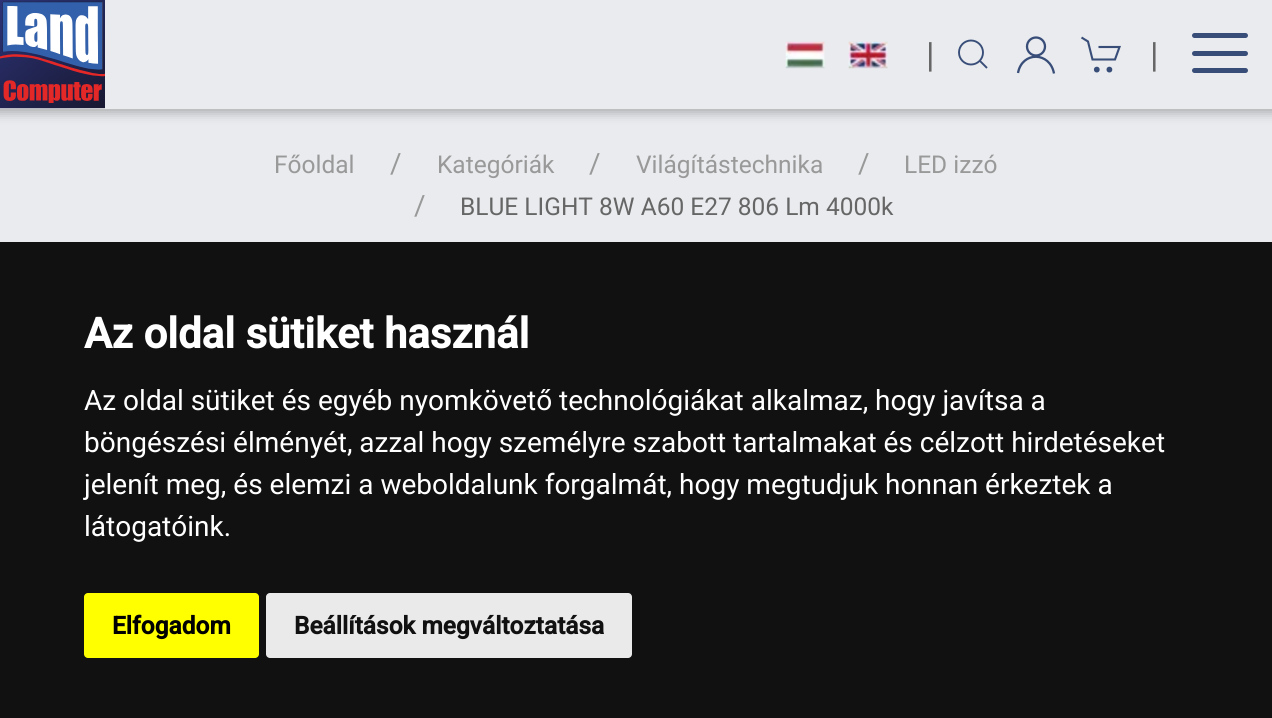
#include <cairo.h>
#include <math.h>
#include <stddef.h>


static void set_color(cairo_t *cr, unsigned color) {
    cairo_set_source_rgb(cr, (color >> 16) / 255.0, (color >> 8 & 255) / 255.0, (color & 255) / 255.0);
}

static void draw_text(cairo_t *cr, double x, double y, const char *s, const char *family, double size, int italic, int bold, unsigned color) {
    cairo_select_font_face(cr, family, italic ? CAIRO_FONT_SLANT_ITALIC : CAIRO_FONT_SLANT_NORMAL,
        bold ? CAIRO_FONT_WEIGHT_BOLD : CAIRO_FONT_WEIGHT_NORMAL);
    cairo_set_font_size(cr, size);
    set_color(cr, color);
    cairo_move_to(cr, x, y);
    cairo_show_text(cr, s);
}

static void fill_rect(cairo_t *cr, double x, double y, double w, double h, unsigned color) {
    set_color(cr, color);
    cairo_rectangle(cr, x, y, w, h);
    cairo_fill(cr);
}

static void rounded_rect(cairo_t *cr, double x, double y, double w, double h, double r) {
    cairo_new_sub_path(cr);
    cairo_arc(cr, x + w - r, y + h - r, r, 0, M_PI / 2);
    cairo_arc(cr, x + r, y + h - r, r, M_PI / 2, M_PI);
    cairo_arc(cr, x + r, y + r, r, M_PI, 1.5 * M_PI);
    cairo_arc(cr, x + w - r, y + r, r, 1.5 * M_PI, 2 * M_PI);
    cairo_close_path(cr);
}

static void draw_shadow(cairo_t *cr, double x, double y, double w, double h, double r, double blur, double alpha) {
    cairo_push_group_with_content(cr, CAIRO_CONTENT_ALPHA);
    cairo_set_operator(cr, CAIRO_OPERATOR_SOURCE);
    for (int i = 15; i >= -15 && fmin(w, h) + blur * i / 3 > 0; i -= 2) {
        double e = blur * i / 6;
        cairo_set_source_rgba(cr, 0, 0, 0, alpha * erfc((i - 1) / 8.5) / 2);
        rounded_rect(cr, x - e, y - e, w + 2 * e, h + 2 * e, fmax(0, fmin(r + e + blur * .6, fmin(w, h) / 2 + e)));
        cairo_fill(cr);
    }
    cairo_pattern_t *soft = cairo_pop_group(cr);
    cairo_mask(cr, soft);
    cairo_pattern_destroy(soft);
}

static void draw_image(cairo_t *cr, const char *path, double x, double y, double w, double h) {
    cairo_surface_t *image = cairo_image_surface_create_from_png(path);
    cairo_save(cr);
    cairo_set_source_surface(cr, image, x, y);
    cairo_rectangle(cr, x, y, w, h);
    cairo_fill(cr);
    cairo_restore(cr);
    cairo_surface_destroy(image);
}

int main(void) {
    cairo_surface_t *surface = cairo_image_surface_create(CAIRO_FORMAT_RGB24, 1272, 718);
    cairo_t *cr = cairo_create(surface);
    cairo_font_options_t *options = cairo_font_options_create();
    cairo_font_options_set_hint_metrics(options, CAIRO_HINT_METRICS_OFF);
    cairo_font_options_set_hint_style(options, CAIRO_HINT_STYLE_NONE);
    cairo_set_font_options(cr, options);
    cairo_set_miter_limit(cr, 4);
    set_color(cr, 0xE9EBEE);
    cairo_paint(cr);
    set_color(cr, 0x000000);
    draw_shadow(cr, -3, -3, 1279, 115, 0, 6, 0.3);
    fill_rect(cr, 0, 0, 1272, 109, 0xE9EBEE);
    draw_image(cr, "assets/img1.png", 0, 0, 105, 109);
    draw_image(cr, "assets/img2.png", 785, 41, 40, 28);
    draw_image(cr, "assets/img3.png", 848, 41, 40, 28);
    draw_text(cr, 926, 67, "|", "Roboto", 35, 0, 0, 0x666666);
    cairo_new_path(cr);
    cairo_arc(cr, 971, 52.5, 12, 0, 2 * M_PI);
    set_color(cr, 0x384D78);
    cairo_set_line_width(cr, 1.9);
    cairo_stroke(cr);
    cairo_new_path(cr);
    cairo_move_to(cr, 980, 61);
    cairo_line_to(cr, 987, 68);
    cairo_close_path(cr);
    cairo_stroke(cr);
    cairo_arc(cr, 1036, 46.5, 9, 0, 2 * M_PI);
    cairo_set_line_width(cr, 2.3);
    cairo_stroke(cr);
    cairo_new_path(cr);
    cairo_move_to(cr, 1018, 73);
    cairo_curve_to(cr, 1022, 51, 1050, 51.5, 1054, 73.5);
    cairo_stroke(cr);
    cairo_new_path(cr);
    cairo_move_to(cr, 1081.5, 37.5);
    cairo_line_to(cr, 1088, 41.5);
    cairo_line_to(cr, 1092.5, 59.5);
    cairo_line_to(cr, 1115, 59.5);
    cairo_line_to(cr, 1119.5, 47);
    cairo_line_to(cr, 1098.5, 47);
    cairo_set_line_width(cr, 2.1);
    cairo_stroke(cr);
    cairo_arc(cr, 1096.8, 69.6, 2.9, 0, 2 * M_PI);
    cairo_fill(cr);
    cairo_arc(cr, 1109.4, 69.6, 2.9, 0, 2 * M_PI);
    cairo_fill(cr);
    draw_text(cr, 1150, 67, "|", "Roboto", 35, 0, 0, 0x666666);
    set_color(cr, 0x384D78);
    rounded_rect(cr, 1192, 33, 56, 5, 2.5);
    cairo_fill(cr);
    rounded_rect(cr, 1192, 51, 56, 5, 2.5);
    cairo_fill(cr);
    rounded_rect(cr, 1192, 68, 56, 5, 2.5);
    cairo_fill(cr);
    draw_text(cr, 274, 173, "Főoldal", "Roboto", 24.5, 0, 0, 0x999999);
    draw_text(cr, 390, 173, "/", "Roboto", 28, 0, 0, 0x999999);
    draw_text(cr, 437, 173, "Kategóriák", "Roboto", 24.5, 0, 0, 0x999999);
    draw_text(cr, 589, 173, "/", "Roboto", 28, 0, 0, 0x999999);
    draw_text(cr, 636, 173, "Világítástechnika", "Roboto", 24.5, 0, 0, 0x999999);
    draw_text(cr, 858, 173, "/", "Roboto", 28, 0, 0, 0x999999);
    draw_text(cr, 904, 173, "LED izzó", "Roboto", 24.5, 0, 0, 0x999999);
    draw_text(cr, 414, 215, "/", "Roboto", 28, 0, 0, 0x999999);
    draw_text(cr, 460, 215, "BLUE LIGHT 8W A60 E27 806 Lm 4000k", "Roboto", 24.5, 0, 0, 0x666666);
    fill_rect(cr, 0, 242, 1272, 476, 0x111111);
    draw_text(cr, 84, 348, "Az oldal sütiket használ", "Roboto", 42, 0, 1, 0xFFFFFF);
    draw_text(cr, 84, 410, "Az oldal sütiket és egyéb nyomkövető technológiákat alkalmaz, hogy javítsa a", "Roboto", 28, 0, 0, 0xFFFFFF);
    draw_text(cr, 84, 452, "böngészési élményét, azzal hogy személyre szabott tartalmakat és célzott hirdetéseket", "Roboto", 28, 0, 0, 0xFFFFFF);
    draw_text(cr, 84, 494, "jelenít meg, és elemzi a weboldalunk forgalmát, hogy megtudjuk honnan érkeztek a", "Roboto", 28, 0, 0, 0xFFFFFF);
    draw_text(cr, 84, 536, "látogatóink.", "Roboto", 28, 0, 0, 0xFFFFFF);
    set_color(cr, 0xFFFF00);
    rounded_rect(cr, 84, 593, 175, 65, 4);
    cairo_fill(cr);
    draw_text(cr, 112, 634, "Elfogadom", "Roboto", 24.5, 0, 1, 0x000000);
    set_color(cr, 0xEAEAEA);
    rounded_rect(cr, 266, 593, 366, 65, 4);
    cairo_fill(cr);
    draw_text(cr, 294, 634, "Beállítások megváltoztatása", "Roboto", 24.5, 0, 1, 0x111111);
    cairo_surface_write_to_png(surface, "output.png");
    cairo_font_options_destroy(options);
    cairo_destroy(cr);
    cairo_surface_destroy(surface);
    return 0;
}
